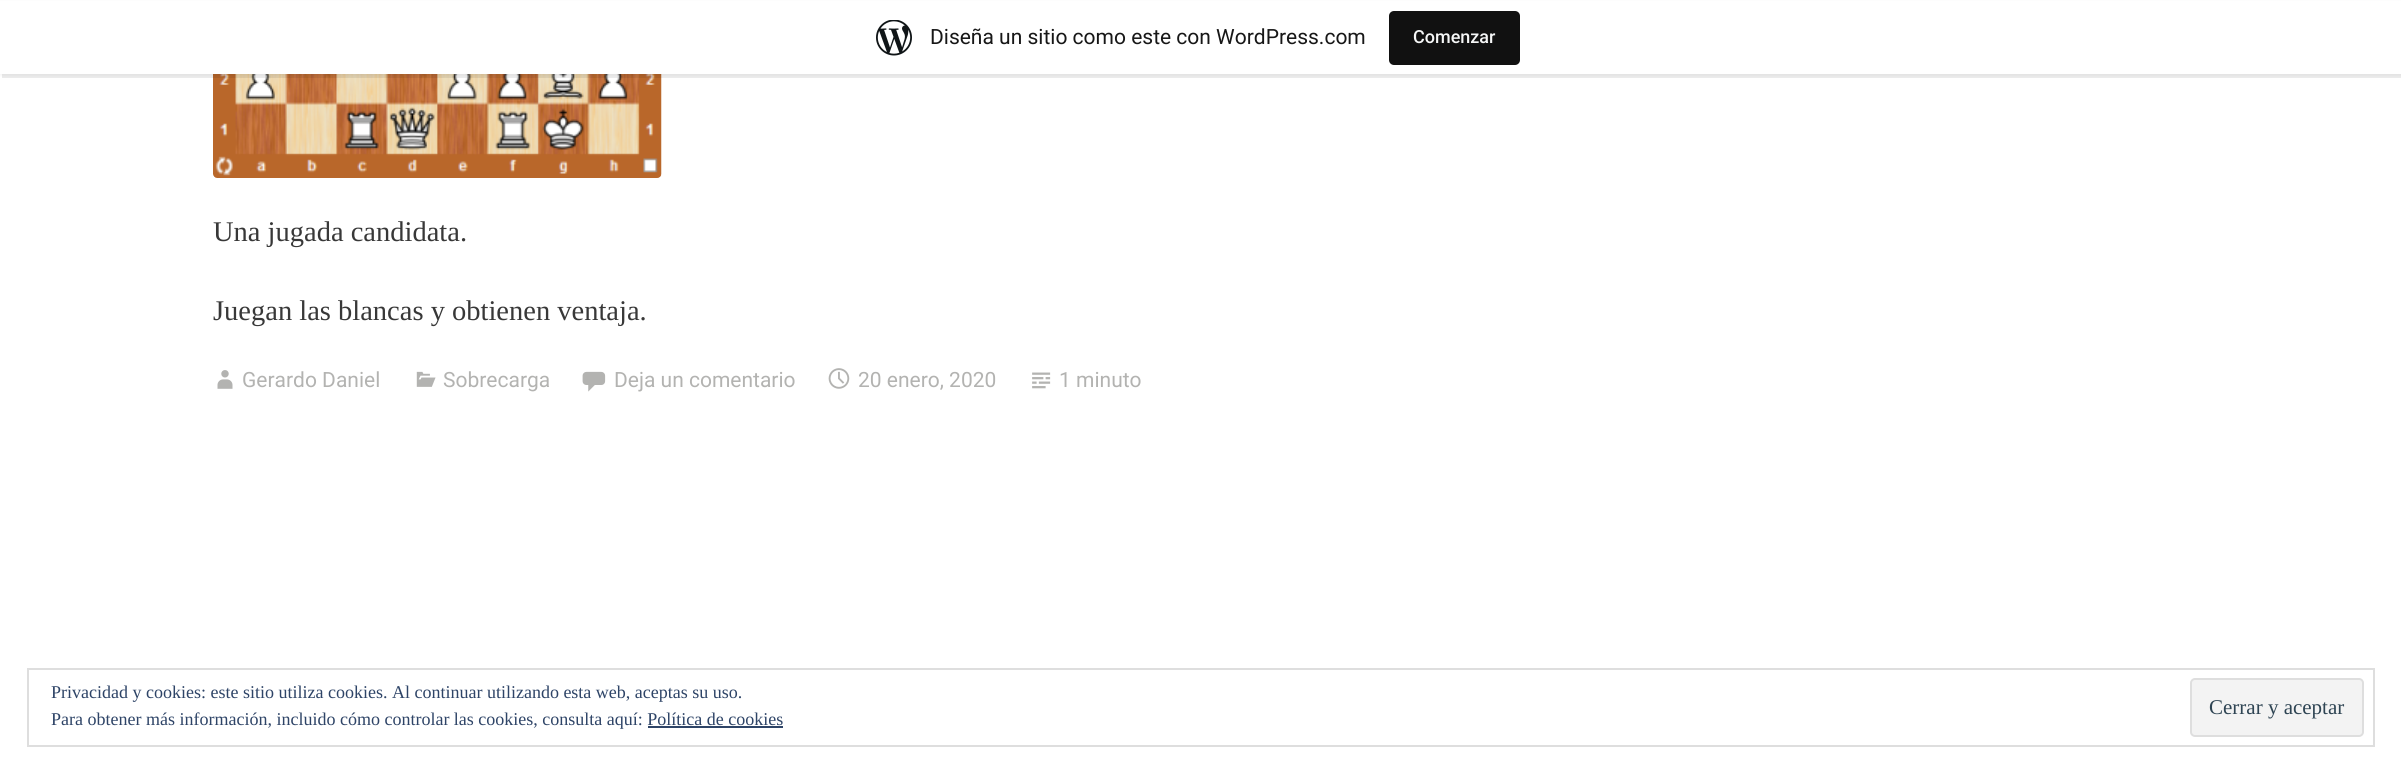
#include <cairo.h>
#include <math.h>
#include <stddef.h>


static void set_color(cairo_t *cr, unsigned color) {
    cairo_set_source_rgb(cr, (color >> 16) / 255.0, (color >> 8 & 255) / 255.0, (color & 255) / 255.0);
}

static void draw_text(cairo_t *cr, double x, double y, const char *s, const char *family, double size, int italic, int bold, unsigned color) {
    cairo_select_font_face(cr, family, italic ? CAIRO_FONT_SLANT_ITALIC : CAIRO_FONT_SLANT_NORMAL,
        bold ? CAIRO_FONT_WEIGHT_BOLD : CAIRO_FONT_WEIGHT_NORMAL);
    cairo_set_font_size(cr, size);
    set_color(cr, color);
    cairo_move_to(cr, x, y);
    cairo_show_text(cr, s);
}

static void fill_rect(cairo_t *cr, double x, double y, double w, double h, unsigned color) {
    set_color(cr, color);
    cairo_rectangle(cr, x, y, w, h);
    cairo_fill(cr);
}

static void rounded_rect(cairo_t *cr, double x, double y, double w, double h, double r) {
    cairo_new_sub_path(cr);
    cairo_arc(cr, x + w - r, y + h - r, r, 0, M_PI / 2);
    cairo_arc(cr, x + r, y + h - r, r, M_PI / 2, M_PI);
    cairo_arc(cr, x + r, y + r, r, M_PI, 1.5 * M_PI);
    cairo_arc(cr, x + w - r, y + r, r, 1.5 * M_PI, 2 * M_PI);
    cairo_close_path(cr);
}

static void draw_shadow(cairo_t *cr, double x, double y, double w, double h, double r, double blur, double alpha) {
    cairo_push_group_with_content(cr, CAIRO_CONTENT_ALPHA);
    cairo_set_operator(cr, CAIRO_OPERATOR_SOURCE);
    for (int i = 15; i >= -15 && fmin(w, h) + blur * i / 3 > 0; i -= 2) {
        double e = blur * i / 6;
        cairo_set_source_rgba(cr, 0, 0, 0, alpha * erfc((i - 1) / 8.5) / 2);
        rounded_rect(cr, x - e, y - e, w + 2 * e, h + 2 * e, fmax(0, fmin(r + e + blur * .6, fmin(w, h) / 2 + e)));
        cairo_fill(cr);
    }
    cairo_pattern_t *soft = cairo_pop_group(cr);
    cairo_mask(cr, soft);
    cairo_pattern_destroy(soft);
}

static void draw_image(cairo_t *cr, const char *path, double x, double y, double w, double h) {
    cairo_surface_t *image = cairo_image_surface_create_from_png(path);
    cairo_save(cr);
    cairo_set_source_surface(cr, image, x, y);
    cairo_rectangle(cr, x, y, w, h);
    cairo_fill(cr);
    cairo_restore(cr);
    cairo_surface_destroy(image);
}

int main(void) {
    cairo_surface_t *surface = cairo_image_surface_create(CAIRO_FORMAT_RGB24, 2401, 773);
    cairo_t *cr = cairo_create(surface);
    cairo_font_options_t *options = cairo_font_options_create();
    cairo_font_options_set_hint_metrics(options, CAIRO_HINT_METRICS_OFF);
    cairo_font_options_set_hint_style(options, CAIRO_HINT_STYLE_NONE);
    cairo_set_font_options(cr, options);
    cairo_set_miter_limit(cr, 4);
    set_color(cr, 0xFFFFFF);
    cairo_paint(cr);
    draw_image(cr, "assets/img2.png", 213, 74, 449, 104);
    set_color(cr, 0x000000);
    draw_shadow(cr, 0, 2, 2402, 73, 0, 1.5, 0.05);
    cairo_set_source_rgba(cr, 0, 0, 0, 0.08);
    cairo_new_path(cr);
    cairo_move_to(cr, 2, 74);
    cairo_line_to(cr, 2, 78);
    cairo_line_to(cr, 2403, 78);
    cairo_line_to(cr, 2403, 5);
    cairo_line_to(cr, 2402, 5);
    cairo_line_to(cr, 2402, 74);
    cairo_close_path(cr);
    cairo_fill(cr);
    fill_rect(cr, 0, 1, 2401, 73, 0xFFFFFF);
    draw_image(cr, "assets/img1.png", 876, 20, 36, 36);
    draw_text(cr, 930, 44, "Diseña un sitio como este con WordPress.com", "Roboto", 21, 0, 0, 0x171717);
    set_color(cr, 0x111111);
    rounded_rect(cr, 1389, 11, 131, 54, 5);
    cairo_fill(cr);
    draw_text(cr, 1413, 43, "Comenzar", "Roboto Medium", 18, 0, 0, 0xF6F7F7);
    draw_text(cr, 213, 241, "Una jugada candidata.", "Liberation Serif", 28.5, 0, 0, 0x383838);
    draw_text(cr, 213, 320, "Juegan las blancas y obtienen ventaja.", "Liberation Serif", 28.5, 0, 0, 0x383838);
    draw_image(cr, "assets/img3.png", 217, 370, 16, 19);
    draw_text(cr, 242, 387, "Gerardo Daniel", "Roboto", 21, 0, 0, 0xB3B3B1);
    draw_image(cr, "assets/img4.png", 416, 371, 20, 16);
    draw_text(cr, 443, 387, "Sobrecarga", "Roboto", 21, 0, 0, 0xB3B3B1);
    draw_image(cr, "assets/img5.png", 582, 371, 24, 21);
    draw_text(cr, 614, 387, "Deja un comentario", "Roboto", 21, 0, 0, 0xB3B3B1);
    draw_image(cr, "assets/img6.png", 828, 368, 22, 21);
    draw_text(cr, 858, 387, "20 enero, 2020", "Roboto", 21, 0, 0, 0xB3B3B1);
    draw_image(cr, "assets/img7.png", 1032, 372, 19, 17);
    draw_text(cr, 1059, 387, "1 minuto", "Roboto", 21, 0, 0, 0xB3B3B1);
    cairo_rectangle(cr, 28, 669, 2346, 77);
    set_color(cr, 0xDEDEDE);
    cairo_stroke(cr);
    draw_text(cr, 51, 698, "Privacidad y cookies: este sitio utiliza cookies. Al continuar utilizando esta web, aceptas su uso.", "Liberation Serif", 18, 0, 0, 0x2E4467);
    draw_text(cr, 51, 725, "Para obtener más información, incluido cómo controlar las cookies, consulta aquí: Política de cookies", "Liberation Serif", 18, 0, 0, 0x2E4467);
    set_color(cr, 0xF3F3F3);
    rounded_rect(cr, 2191, 679, 172, 57, 4);
    cairo_fill_preserve(cr);
    set_color(cr, 0xDEDEDE);
    cairo_stroke(cr);
    draw_text(cr, 2209, 714, "Cerrar y aceptar", "Liberation Serif", 21, 0, 0, 0x2E4453);
    fill_rect(cr, 648, 726, 135, 2, 0x2E4467);
    cairo_surface_write_to_png(surface, "output.png");
    cairo_font_options_destroy(options);
    cairo_destroy(cr);
    cairo_surface_destroy(surface);
    return 0;
}
